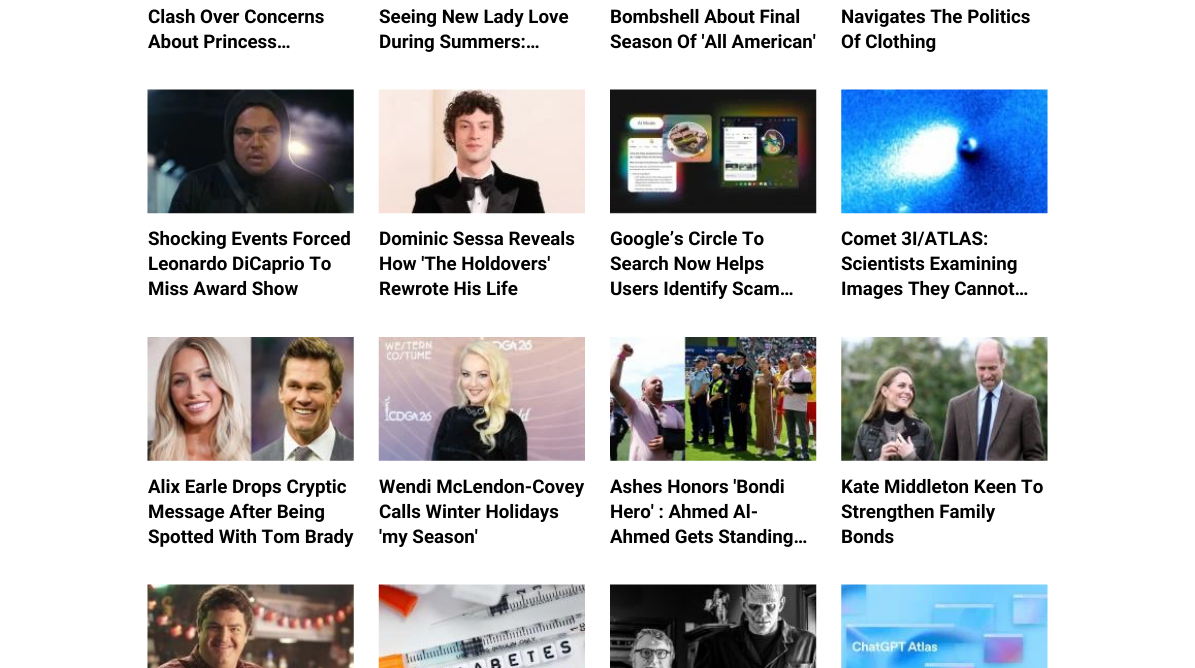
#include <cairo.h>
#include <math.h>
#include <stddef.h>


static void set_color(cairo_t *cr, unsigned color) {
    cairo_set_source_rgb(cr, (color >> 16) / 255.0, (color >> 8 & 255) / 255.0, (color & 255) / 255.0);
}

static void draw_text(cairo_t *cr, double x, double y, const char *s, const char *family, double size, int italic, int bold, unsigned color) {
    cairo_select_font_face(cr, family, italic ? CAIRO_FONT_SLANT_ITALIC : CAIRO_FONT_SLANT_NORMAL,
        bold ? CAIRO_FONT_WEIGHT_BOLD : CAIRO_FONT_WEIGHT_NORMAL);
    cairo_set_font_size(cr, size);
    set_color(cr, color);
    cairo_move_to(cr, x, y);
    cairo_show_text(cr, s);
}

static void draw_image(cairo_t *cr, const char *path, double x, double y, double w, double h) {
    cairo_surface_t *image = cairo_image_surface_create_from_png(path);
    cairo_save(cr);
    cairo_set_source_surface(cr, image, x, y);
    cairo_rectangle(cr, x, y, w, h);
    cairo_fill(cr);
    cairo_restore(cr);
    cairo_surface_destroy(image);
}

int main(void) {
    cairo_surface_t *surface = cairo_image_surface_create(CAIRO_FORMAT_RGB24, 1195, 668);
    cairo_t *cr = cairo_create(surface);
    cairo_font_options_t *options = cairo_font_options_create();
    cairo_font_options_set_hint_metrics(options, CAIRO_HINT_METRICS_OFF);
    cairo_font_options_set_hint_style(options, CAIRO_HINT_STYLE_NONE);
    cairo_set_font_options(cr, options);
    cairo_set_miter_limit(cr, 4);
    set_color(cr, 0xFFFFFF);
    cairo_paint(cr);
    draw_text(cr, 148, 23, "Clash Over Concerns", "Roboto", 18.75, 0, 1, 0x000000);
    draw_text(cr, 148, 48, "About Princess…", "Roboto", 18.75, 0, 1, 0x000000);
    draw_text(cr, 379, 23, "Seeing New Lady Love", "Roboto", 18.75, 0, 1, 0x000000);
    draw_text(cr, 379, 48, "During Summers:…", "Roboto", 18.75, 0, 1, 0x000000);
    draw_text(cr, 610, 23, "Bombshell About Final", "Roboto", 18.75, 0, 1, 0x000000);
    draw_text(cr, 610, 48, "Season Of 'All American'", "Roboto", 18.75, 0, 1, 0x000000);
    draw_text(cr, 841, 23, "Navigates The Politics", "Roboto", 18.75, 0, 1, 0x000000);
    draw_text(cr, 841, 48, "Of Clothing", "Roboto", 18.75, 0, 1, 0x000000);
    draw_image(cr, "assets/img1.png", 147, 89, 207, 125);
    draw_text(cr, 148, 245, "Shocking Events Forced", "Roboto", 18.75, 0, 1, 0x000000);
    draw_text(cr, 148, 270, "Leonardo DiCaprio To", "Roboto", 18.75, 0, 1, 0x000000);
    draw_text(cr, 148, 295, "Miss Award Show", "Roboto", 18.75, 0, 1, 0x000000);
    draw_image(cr, "assets/img2.png", 378, 89, 207, 125);
    draw_text(cr, 379, 245, "Dominic Sessa Reveals", "Roboto", 18.75, 0, 1, 0x000000);
    draw_text(cr, 379, 270, "How 'The Holdovers'", "Roboto", 18.75, 0, 1, 0x000000);
    draw_text(cr, 379, 295, "Rewrote His Life", "Roboto", 18.75, 0, 1, 0x000000);
    draw_image(cr, "assets/img3.png", 610, 89, 207, 125);
    draw_text(cr, 610, 245, "Google’s Circle To", "Roboto", 18.75, 0, 1, 0x000000);
    draw_text(cr, 610, 270, "Search Now Helps", "Roboto", 18.75, 0, 1, 0x000000);
    draw_text(cr, 610, 295, "Users Identify Scam…", "Roboto", 18.75, 0, 1, 0x000000);
    draw_image(cr, "assets/img4.png", 841, 89, 207, 125);
    draw_text(cr, 841, 245, "Comet 3I/ATLAS:", "Roboto", 18.75, 0, 1, 0x000000);
    draw_text(cr, 841, 270, "Scientists Examining", "Roboto", 18.75, 0, 1, 0x000000);
    draw_text(cr, 841, 295, "Images They Cannot…", "Roboto", 18.75, 0, 1, 0x000000);
    draw_image(cr, "assets/img5.png", 147, 337, 207, 124);
    draw_text(cr, 148, 493, "Alix Earle Drops Cryptic", "Roboto", 18.75, 0, 1, 0x000000);
    draw_text(cr, 148, 518, "Message After Being", "Roboto", 18.75, 0, 1, 0x000000);
    draw_text(cr, 148, 543, "Spotted With Tom Brady", "Roboto", 18.75, 0, 1, 0x000000);
    draw_image(cr, "assets/img6.png", 378, 337, 207, 124);
    draw_text(cr, 379, 493, "Wendi McLendon-Covey", "Roboto", 18.75, 0, 1, 0x000000);
    draw_text(cr, 379, 518, "Calls Winter Holidays", "Roboto", 18.75, 0, 1, 0x000000);
    draw_text(cr, 379, 543, "'my Season'", "Roboto", 18.75, 0, 1, 0x000000);
    draw_image(cr, "assets/img7.png", 610, 337, 207, 124);
    draw_text(cr, 610, 493, "Ashes Honors 'Bondi", "Roboto", 18.75, 0, 1, 0x000000);
    draw_text(cr, 610, 518, "Hero' : Ahmed Al-", "Roboto", 18.75, 0, 1, 0x000000);
    draw_text(cr, 610, 543, "Ahmed Gets Standing…", "Roboto", 18.75, 0, 1, 0x000000);
    draw_image(cr, "assets/img8.png", 841, 337, 207, 124);
    draw_text(cr, 841, 493, "Kate Middleton Keen To", "Roboto", 18.75, 0, 1, 0x000000);
    draw_text(cr, 841, 518, "Strengthen Family", "Roboto", 18.75, 0, 1, 0x000000);
    draw_text(cr, 841, 543, "Bonds", "Roboto", 18.75, 0, 1, 0x000000);
    draw_image(cr, "assets/img9.png", 147, 584, 207, 84);
    draw_image(cr, "assets/img10.png", 378, 584, 207, 84);
    draw_image(cr, "assets/img11.png", 610, 584, 207, 84);
    draw_image(cr, "assets/img12.png", 841, 584, 207, 84);
    cairo_surface_write_to_png(surface, "output.png");
    cairo_font_options_destroy(options);
    cairo_destroy(cr);
    cairo_surface_destroy(surface);
    return 0;
}
